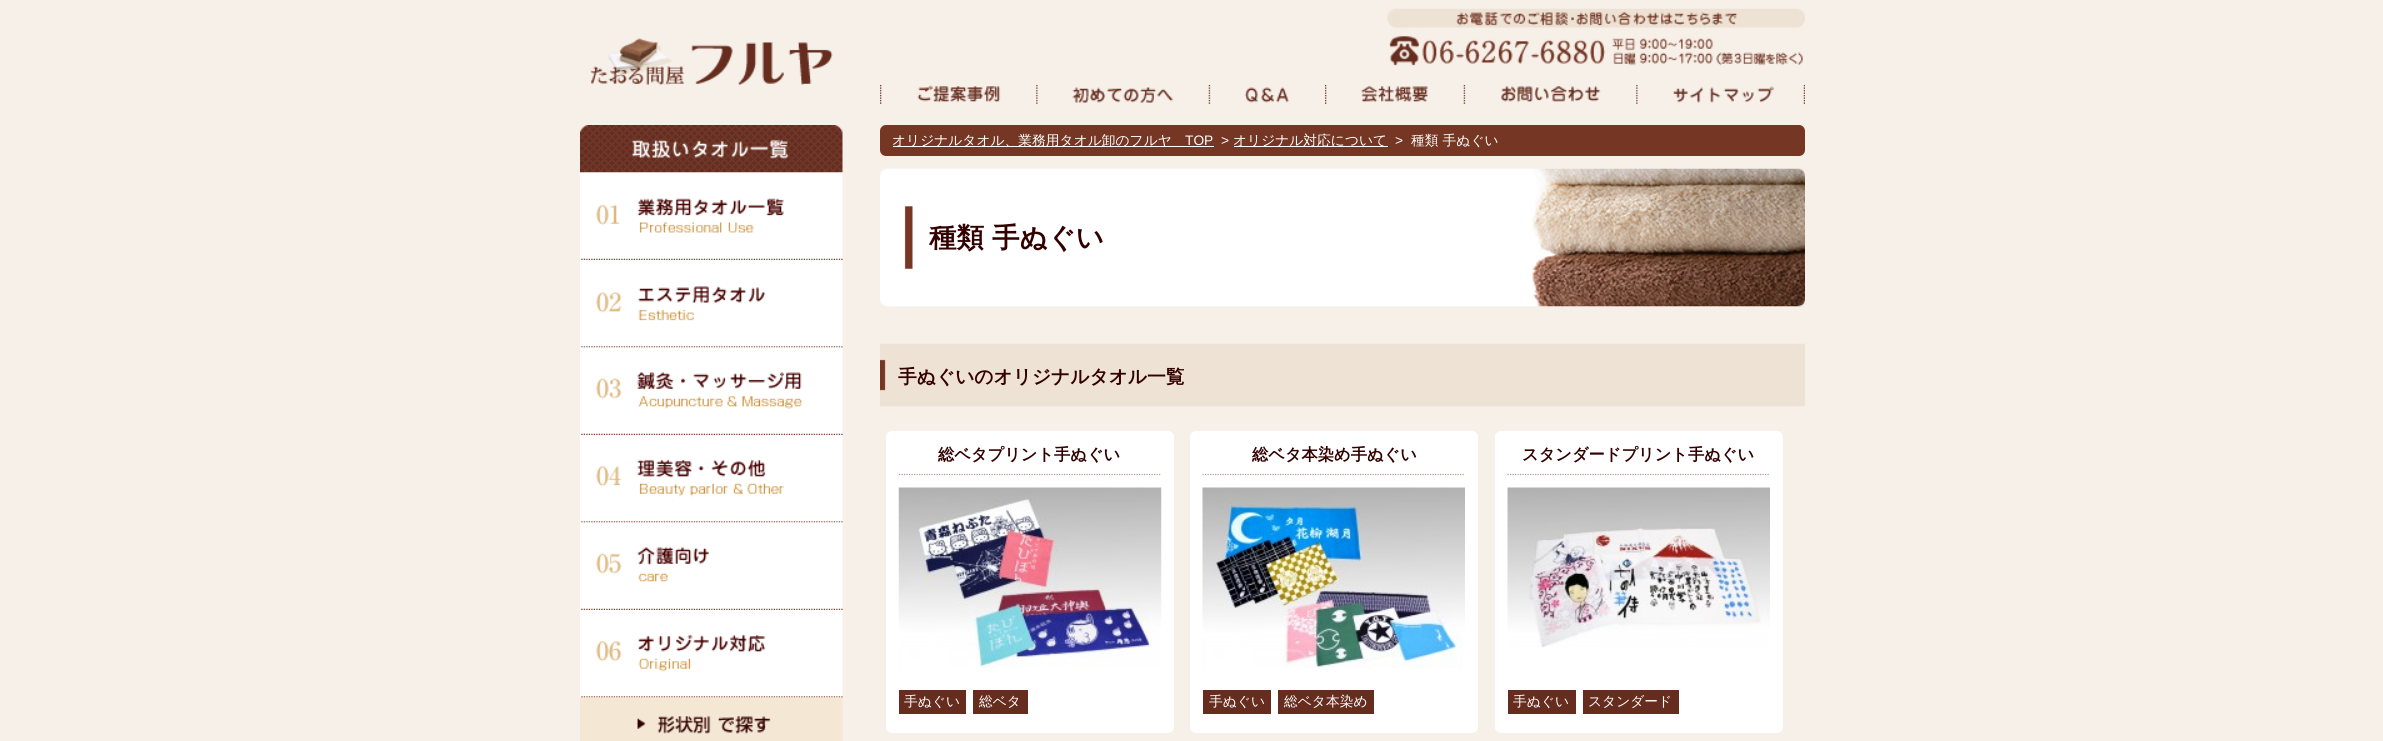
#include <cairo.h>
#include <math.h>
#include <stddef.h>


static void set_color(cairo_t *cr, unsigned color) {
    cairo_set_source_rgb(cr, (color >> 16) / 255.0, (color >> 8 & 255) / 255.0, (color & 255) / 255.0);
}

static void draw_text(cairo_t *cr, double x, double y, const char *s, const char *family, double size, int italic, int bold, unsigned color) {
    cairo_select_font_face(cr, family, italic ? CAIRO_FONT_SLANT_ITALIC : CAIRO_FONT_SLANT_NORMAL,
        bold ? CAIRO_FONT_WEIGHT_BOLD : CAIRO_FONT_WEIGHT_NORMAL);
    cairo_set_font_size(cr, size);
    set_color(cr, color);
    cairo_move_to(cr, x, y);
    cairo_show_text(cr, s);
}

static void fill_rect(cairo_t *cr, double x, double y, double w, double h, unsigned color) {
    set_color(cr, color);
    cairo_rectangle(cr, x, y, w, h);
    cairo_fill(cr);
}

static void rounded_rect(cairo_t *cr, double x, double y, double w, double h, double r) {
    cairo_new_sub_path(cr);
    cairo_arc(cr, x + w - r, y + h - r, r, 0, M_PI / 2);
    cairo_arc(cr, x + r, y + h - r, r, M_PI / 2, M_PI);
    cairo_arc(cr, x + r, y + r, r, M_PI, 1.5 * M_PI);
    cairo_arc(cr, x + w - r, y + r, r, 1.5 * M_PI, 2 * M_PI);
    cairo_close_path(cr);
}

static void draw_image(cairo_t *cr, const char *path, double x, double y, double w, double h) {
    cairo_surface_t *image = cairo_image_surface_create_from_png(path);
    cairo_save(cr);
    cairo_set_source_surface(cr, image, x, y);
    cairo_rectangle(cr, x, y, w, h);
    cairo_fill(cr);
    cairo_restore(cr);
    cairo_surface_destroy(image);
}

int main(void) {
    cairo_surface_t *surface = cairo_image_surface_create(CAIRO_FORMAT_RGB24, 2383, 741);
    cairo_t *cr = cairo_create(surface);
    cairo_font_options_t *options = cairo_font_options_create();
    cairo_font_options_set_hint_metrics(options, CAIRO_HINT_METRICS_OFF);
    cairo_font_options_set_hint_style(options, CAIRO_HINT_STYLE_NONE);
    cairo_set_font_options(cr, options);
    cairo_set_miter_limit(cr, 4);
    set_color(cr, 0xF6F0E9);
    cairo_paint(cr);
    draw_image(cr, "assets/img1.png", 590, 37, 243, 48);
    draw_image(cr, "assets/img2.png", 1387, 8, 418, 58);
    draw_image(cr, "assets/img3.png", 880, 84, 121, 20);
    draw_image(cr, "assets/img4.png", 1036, 84, 137, 20);
    draw_image(cr, "assets/img5.png", 1208, 84, 81, 20);
    draw_image(cr, "assets/img6.png", 1325, 84, 103, 20);
    draw_image(cr, "assets/img7.png", 1463, 84, 138, 20);
    draw_image(cr, "assets/img8.png", 1636, 84, 169, 20);
    draw_image(cr, "assets/img9.png", 580, 125, 263, 48);
    draw_image(cr, "assets/img10.png", 580, 172, 263, 88);
    draw_image(cr, "assets/img11.png", 580, 260, 263, 88);
    draw_image(cr, "assets/img12.png", 580, 347, 263, 88);
    draw_image(cr, "assets/img13.png", 580, 435, 263, 88);
    draw_image(cr, "assets/img14.png", 580, 522, 263, 88);
    draw_image(cr, "assets/img15.png", 580, 610, 263, 88);
    draw_image(cr, "assets/img16.png", 580, 697, 263, 44);
    set_color(cr, 0x753624);
    rounded_rect(cr, 880, 125, 925, 31, 6);
    cairo_fill(cr);
    fill_rect(cr, 893, 146, 321, 1, 0xFFFFFF);
    draw_text(cr, 892, 145, "オリジナルタオル、業務用タオル卸のフルヤ", "WenQuanYi Zen Hei Medium", 13.75, 0, 0, 0xFFFFFF);
    draw_text(cr, 1185, 145, "TOP", "Liberation Sans", 13.75, 0, 0, 0xFFFFFF);
    draw_text(cr, 1221, 145, ">", "Liberation Sans", 13.75, 0, 0, 0xFFFFFF);
    fill_rect(cr, 1234, 146, 154, 1, 0xFFFFFF);
    draw_text(cr, 1233, 145, "オリジナル対応について", "WenQuanYi Zen Hei Medium", 13.75, 0, 0, 0xFFFFFF);
    draw_text(cr, 1395, 145, ">", "Liberation Sans", 13.75, 0, 0, 0xFFFFFF);
    draw_text(cr, 1411, 145, "種類 手ぬぐい", "WenQuanYi Zen Hei Medium", 13.75, 0, 0, 0xFFFFFF);
    draw_image(cr, "assets/img17.png", 880, 168, 925, 139);
    draw_text(cr, 929, 247, "種類", "WenQuanYi Zen Hei", 27.5, 0, 1, 0x330000);
    draw_text(cr, 992, 247, "手ぬぐい", "WenQuanYi Zen Hei", 27.5, 0, 1, 0x330000);
    draw_image(cr, "assets/img18.png", 880, 343, 925, 64);
    draw_text(cr, 898, 383, "手ぬぐいのオリジナルタオル一覧", "WenQuanYi Zen Hei", 18.75, 0, 1, 0x330000);
    set_color(cr, 0xFFFFFF);
    rounded_rect(cr, 886, 431, 288, 302, 6);
    cairo_fill(cr);
    cairo_new_path(cr);
    cairo_move_to(cr, 899, 474.5);
    cairo_line_to(cr, 1161, 474.5);
    set_color(cr, 0xBA9A91);
    cairo_set_line_width(cr, 1.2);
    cairo_set_dash(cr, (double[]){1.25, 1.25}, 2, 0);
    cairo_stroke(cr);
    draw_text(cr, 938, 460, "総ベタプリント手ぬぐい", "WenQuanYi Zen Hei", 16.25, 0, 1, 0x330000);
    draw_image(cr, "assets/img19.png", 898, 487, 264, 181);
    fill_rect(cr, 899, 690, 67, 24, 0x662D1F);
    draw_text(cr, 904, 706, "手ぬぐい", "WenQuanYi Zen Hei Medium", 13.75, 0, 0, 0xFFFFFF);
    fill_rect(cr, 973, 690, 55, 24, 0x662D1F);
    draw_text(cr, 979, 706, "総ベタ", "WenQuanYi Zen Hei Medium", 13.75, 0, 0, 0xFFFFFF);
    rounded_rect(cr, 1190, 431, 288, 302, 6);
    cairo_fill(cr);
    cairo_new_path(cr);
    cairo_move_to(cr, 1202.5, 474.5);
    cairo_line_to(cr, 1465, 474.5);
    set_color(cr, 0xBA9A91);
    cairo_stroke(cr);
    draw_text(cr, 1252, 460, "総ベタ本染め手ぬぐい", "WenQuanYi Zen Hei", 16.25, 0, 1, 0x330000);
    draw_image(cr, "assets/img20.png", 1202, 487, 263, 181);
    fill_rect(cr, 1203, 690, 68, 24, 0x662D1F);
    draw_text(cr, 1209, 706, "手ぬぐい", "WenQuanYi Zen Hei Medium", 13.75, 0, 0, 0xFFFFFF);
    fill_rect(cr, 1278, 690, 96, 24, 0x662D1F);
    draw_text(cr, 1284, 706, "総ベタ本染め", "WenQuanYi Zen Hei Medium", 13.75, 0, 0, 0xFFFFFF);
    rounded_rect(cr, 1495, 431, 288, 302, 6);
    cairo_fill(cr);
    cairo_new_path(cr);
    cairo_move_to(cr, 1507.5, 474.5);
    cairo_line_to(cr, 1770, 474.5);
    set_color(cr, 0xBA9A91);
    cairo_stroke(cr);
    draw_text(cr, 1522, 460, "スタンダードプリント手ぬぐい", "WenQuanYi Zen Hei", 16.25, 0, 1, 0x330000);
    draw_image(cr, "assets/img21.png", 1507, 487, 263, 161);
    fill_rect(cr, 1508, 690, 68, 24, 0x662D1F);
    draw_text(cr, 1513, 706, "手ぬぐい", "WenQuanYi Zen Hei Medium", 13.75, 0, 0, 0xFFFFFF);
    fill_rect(cr, 1583, 690, 96, 24, 0x662D1F);
    draw_text(cr, 1588, 706, "スタンダード", "WenQuanYi Zen Hei Medium", 13.75, 0, 0, 0xFFFFFF);
    cairo_surface_write_to_png(surface, "output.png");
    cairo_font_options_destroy(options);
    cairo_destroy(cr);
    cairo_surface_destroy(surface);
    return 0;
}
